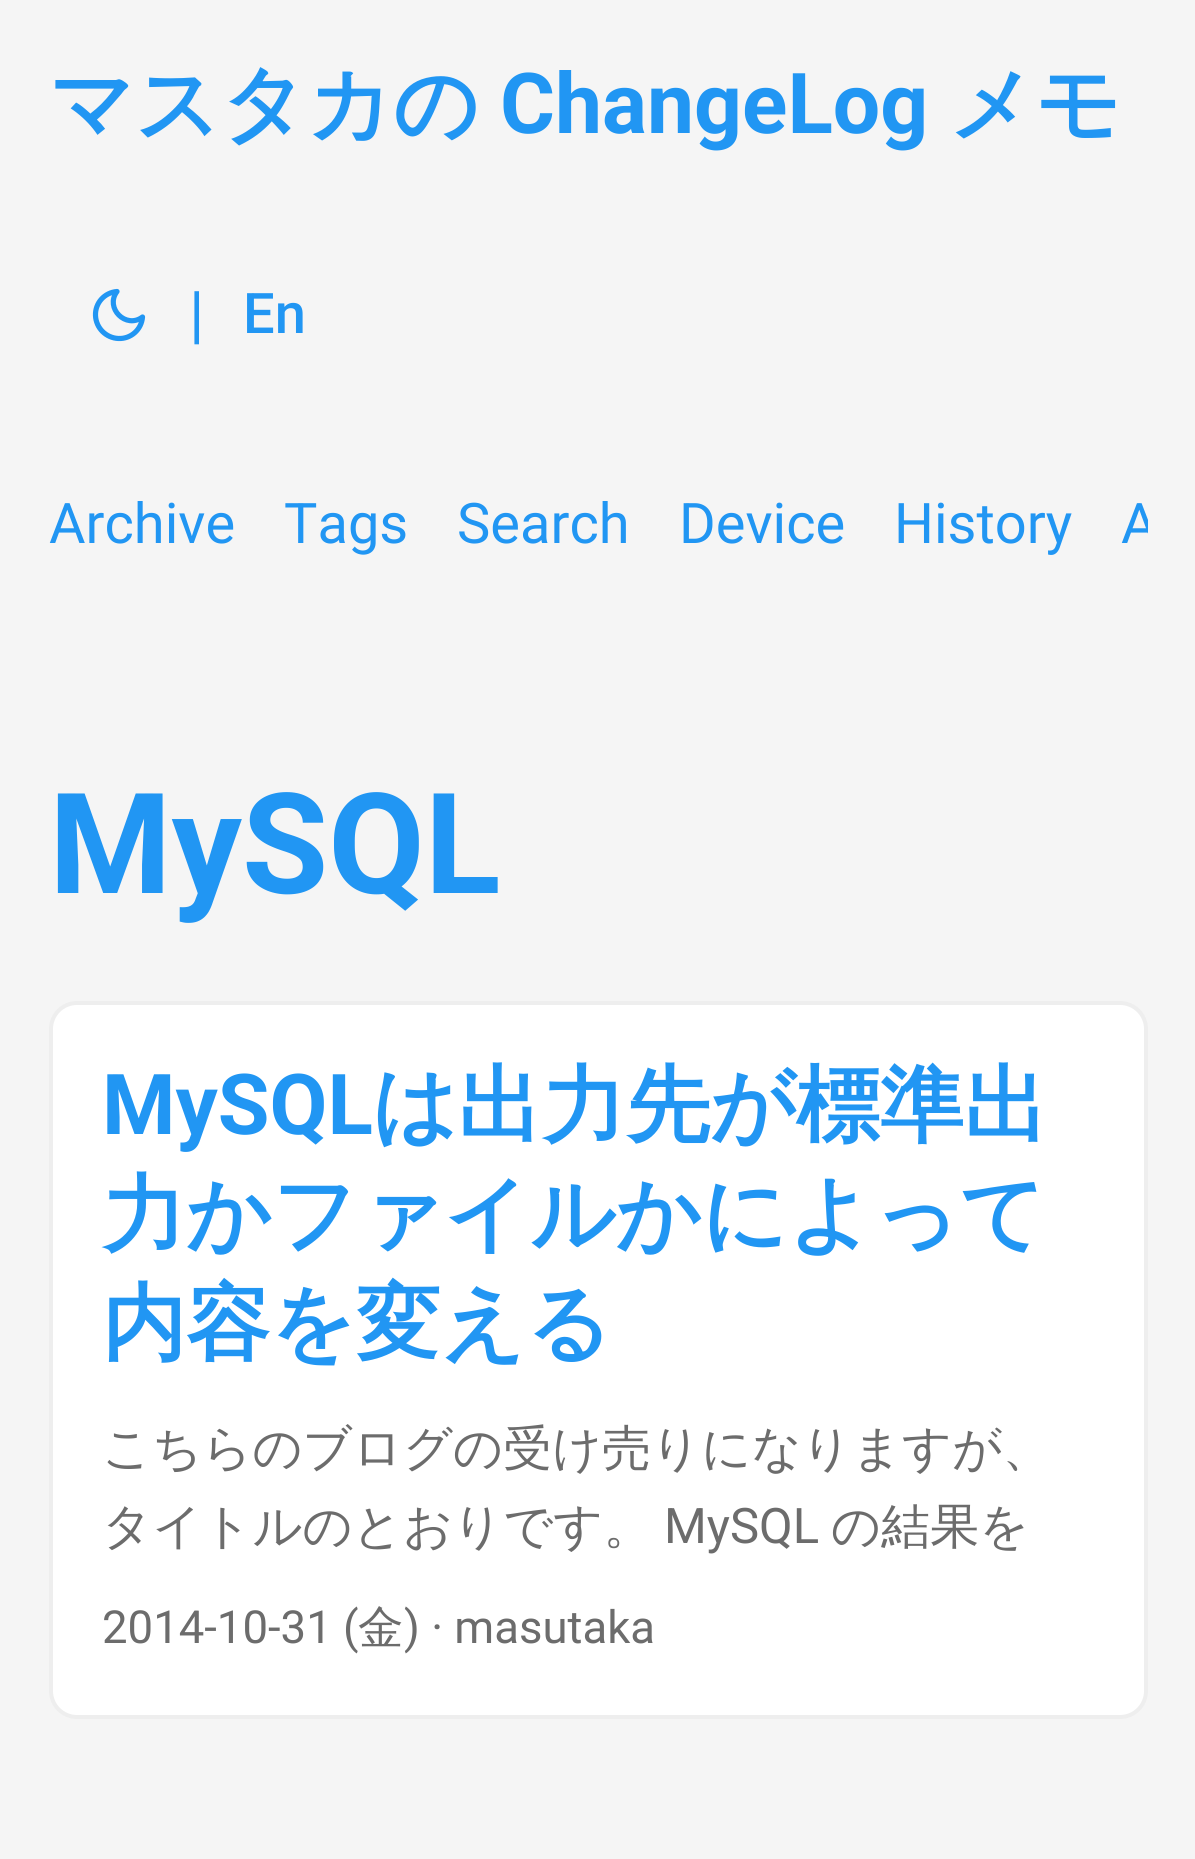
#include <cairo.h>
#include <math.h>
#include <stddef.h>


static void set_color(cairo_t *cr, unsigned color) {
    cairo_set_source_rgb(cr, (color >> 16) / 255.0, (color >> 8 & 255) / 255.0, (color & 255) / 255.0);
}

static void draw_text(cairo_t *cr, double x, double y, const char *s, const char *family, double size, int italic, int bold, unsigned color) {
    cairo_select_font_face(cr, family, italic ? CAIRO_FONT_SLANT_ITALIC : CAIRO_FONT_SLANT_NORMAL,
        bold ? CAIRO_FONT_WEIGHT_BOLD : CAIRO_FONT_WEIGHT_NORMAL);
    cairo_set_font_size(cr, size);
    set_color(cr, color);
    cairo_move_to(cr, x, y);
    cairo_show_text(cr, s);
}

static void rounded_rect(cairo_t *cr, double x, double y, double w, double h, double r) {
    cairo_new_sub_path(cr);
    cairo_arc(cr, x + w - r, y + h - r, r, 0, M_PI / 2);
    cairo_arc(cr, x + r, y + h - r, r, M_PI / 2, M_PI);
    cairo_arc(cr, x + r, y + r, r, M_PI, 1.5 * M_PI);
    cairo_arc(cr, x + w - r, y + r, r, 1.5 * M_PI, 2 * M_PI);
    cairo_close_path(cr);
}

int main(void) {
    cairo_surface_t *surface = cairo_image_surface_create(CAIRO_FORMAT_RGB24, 1195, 1859);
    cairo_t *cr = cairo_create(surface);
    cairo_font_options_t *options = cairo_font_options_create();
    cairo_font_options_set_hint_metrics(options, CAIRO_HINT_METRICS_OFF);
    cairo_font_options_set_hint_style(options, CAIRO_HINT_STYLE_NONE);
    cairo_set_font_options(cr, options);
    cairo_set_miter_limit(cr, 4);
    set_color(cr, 0xF5F5F5);
    cairo_paint(cr);
    draw_text(cr, 49, 133, "マスタカの", "WenQuanYi Zen Hei", 84, 0, 1, 0x2196F3);
    draw_text(cr, 500, 133, "ChangeLog", "Roboto", 84, 0, 1, 0x2196F3);
    draw_text(cr, 949, 133, "メモ", "WenQuanYi Zen Hei", 84, 0, 1, 0x2196F3);
    cairo_new_path(cr);
    cairo_move_to(cr, 142.5, 317);
    cairo_curve_to(cr, 141.5, 329.5, 131, 339, 118.5, 338.5);
    cairo_curve_to(cr, 106, 338, 96, 328, 95.5, 315.5);
    cairo_curve_to(cr, 95, 303, 104.5, 292.5, 117, 291.5);
    cairo_curve_to(cr, 104.5, 308, 126, 329.5, 142.5, 317);
    cairo_close_path(cr);
    cairo_set_line_width(cr, 5.2);
    cairo_set_line_cap(cr, CAIRO_LINE_CAP_ROUND);
    cairo_set_line_join(cr, CAIRO_LINE_JOIN_ROUND);
    cairo_stroke(cr);
    draw_text(cr, 189, 336, "|", "Roboto", 63, 0, 0, 0x2196F3);
    draw_text(cr, 243, 333, "En", "Roboto Medium", 56, 0, 0, 0x2196F3);
    draw_text(cr, 49, 543, "Archive", "Roboto", 56, 0, 0, 0x2196F3);
    draw_text(cr, 284, 543, "Tags", "Roboto", 56, 0, 0, 0x2196F3);
    draw_text(cr, 457, 543, "Search", "Roboto", 56, 0, 0, 0x2196F3);
    draw_text(cr, 679, 543, "Device", "Roboto", 56, 0, 0, 0x2196F3);
    draw_text(cr, 894, 543, "History", "Roboto", 56, 0, 0, 0x2196F3);
    cairo_save(cr);
    cairo_rectangle(cr, 49, 420, 1099, 210);
    cairo_clip(cr);
    draw_text(cr, 1121, 543, "A", "Roboto", 56, 0, 0, 0x2196F3);
    cairo_restore(cr);
    draw_text(cr, 49, 893, "MySQL", "Roboto", 140, 0, 1, 0x2196F3);
    set_color(cr, 0xFFFFFF);
    rounded_rect(cr, 51, 1003, 1095, 714, 26);
    cairo_fill_preserve(cr);
    set_color(cr, 0xEEEEEE);
    cairo_set_line_width(cr, 4);
    cairo_set_line_cap(cr, CAIRO_LINE_CAP_BUTT);
    cairo_set_line_join(cr, CAIRO_LINE_JOIN_MITER);
    cairo_stroke(cr);
    draw_text(cr, 102, 1134, "MySQL", "Roboto", 84, 0, 1, 0x2196F3);
    draw_text(cr, 372, 1134, "は出力先が標準出", "WenQuanYi Zen Hei", 84, 0, 1, 0x2196F3);
    draw_text(cr, 102, 1243, "力かファイルかによって", "WenQuanYi Zen Hei", 84, 0, 1, 0x2196F3);
    draw_text(cr, 102, 1352, "内容を変える", "WenQuanYi Zen Hei", 84, 0, 1, 0x2196F3);
    draw_text(cr, 102, 1465, "こちらのブログの受け売りになりますが、", "WenQuanYi Zen Hei Medium", 49, 0, 0, 0x6C6C6C);
    draw_text(cr, 102, 1543, "タイトルのとおりです。", "WenQuanYi Zen Hei Medium", 49, 0, 0, 0x6C6C6C);
    draw_text(cr, 664, 1543, "MySQL", "Roboto", 49, 0, 0, 0x6C6C6C);
    draw_text(cr, 831, 1543, "の結果を", "WenQuanYi Zen Hei Medium", 49, 0, 0, 0x6C6C6C);
    draw_text(cr, 102, 1643, "2014-10-31 (", "Roboto", 45.5, 0, 0, 0x6C6C6C);
    draw_text(cr, 358, 1643, "金", "WenQuanYi Zen Hei Medium", 45.5, 0, 0, 0x6C6C6C);
    draw_text(cr, 404, 1643, ") · masutaka", "Roboto", 45.5, 0, 0, 0x6C6C6C);
    cairo_surface_write_to_png(surface, "output.png");
    cairo_font_options_destroy(options);
    cairo_destroy(cr);
    cairo_surface_destroy(surface);
    return 0;
}
